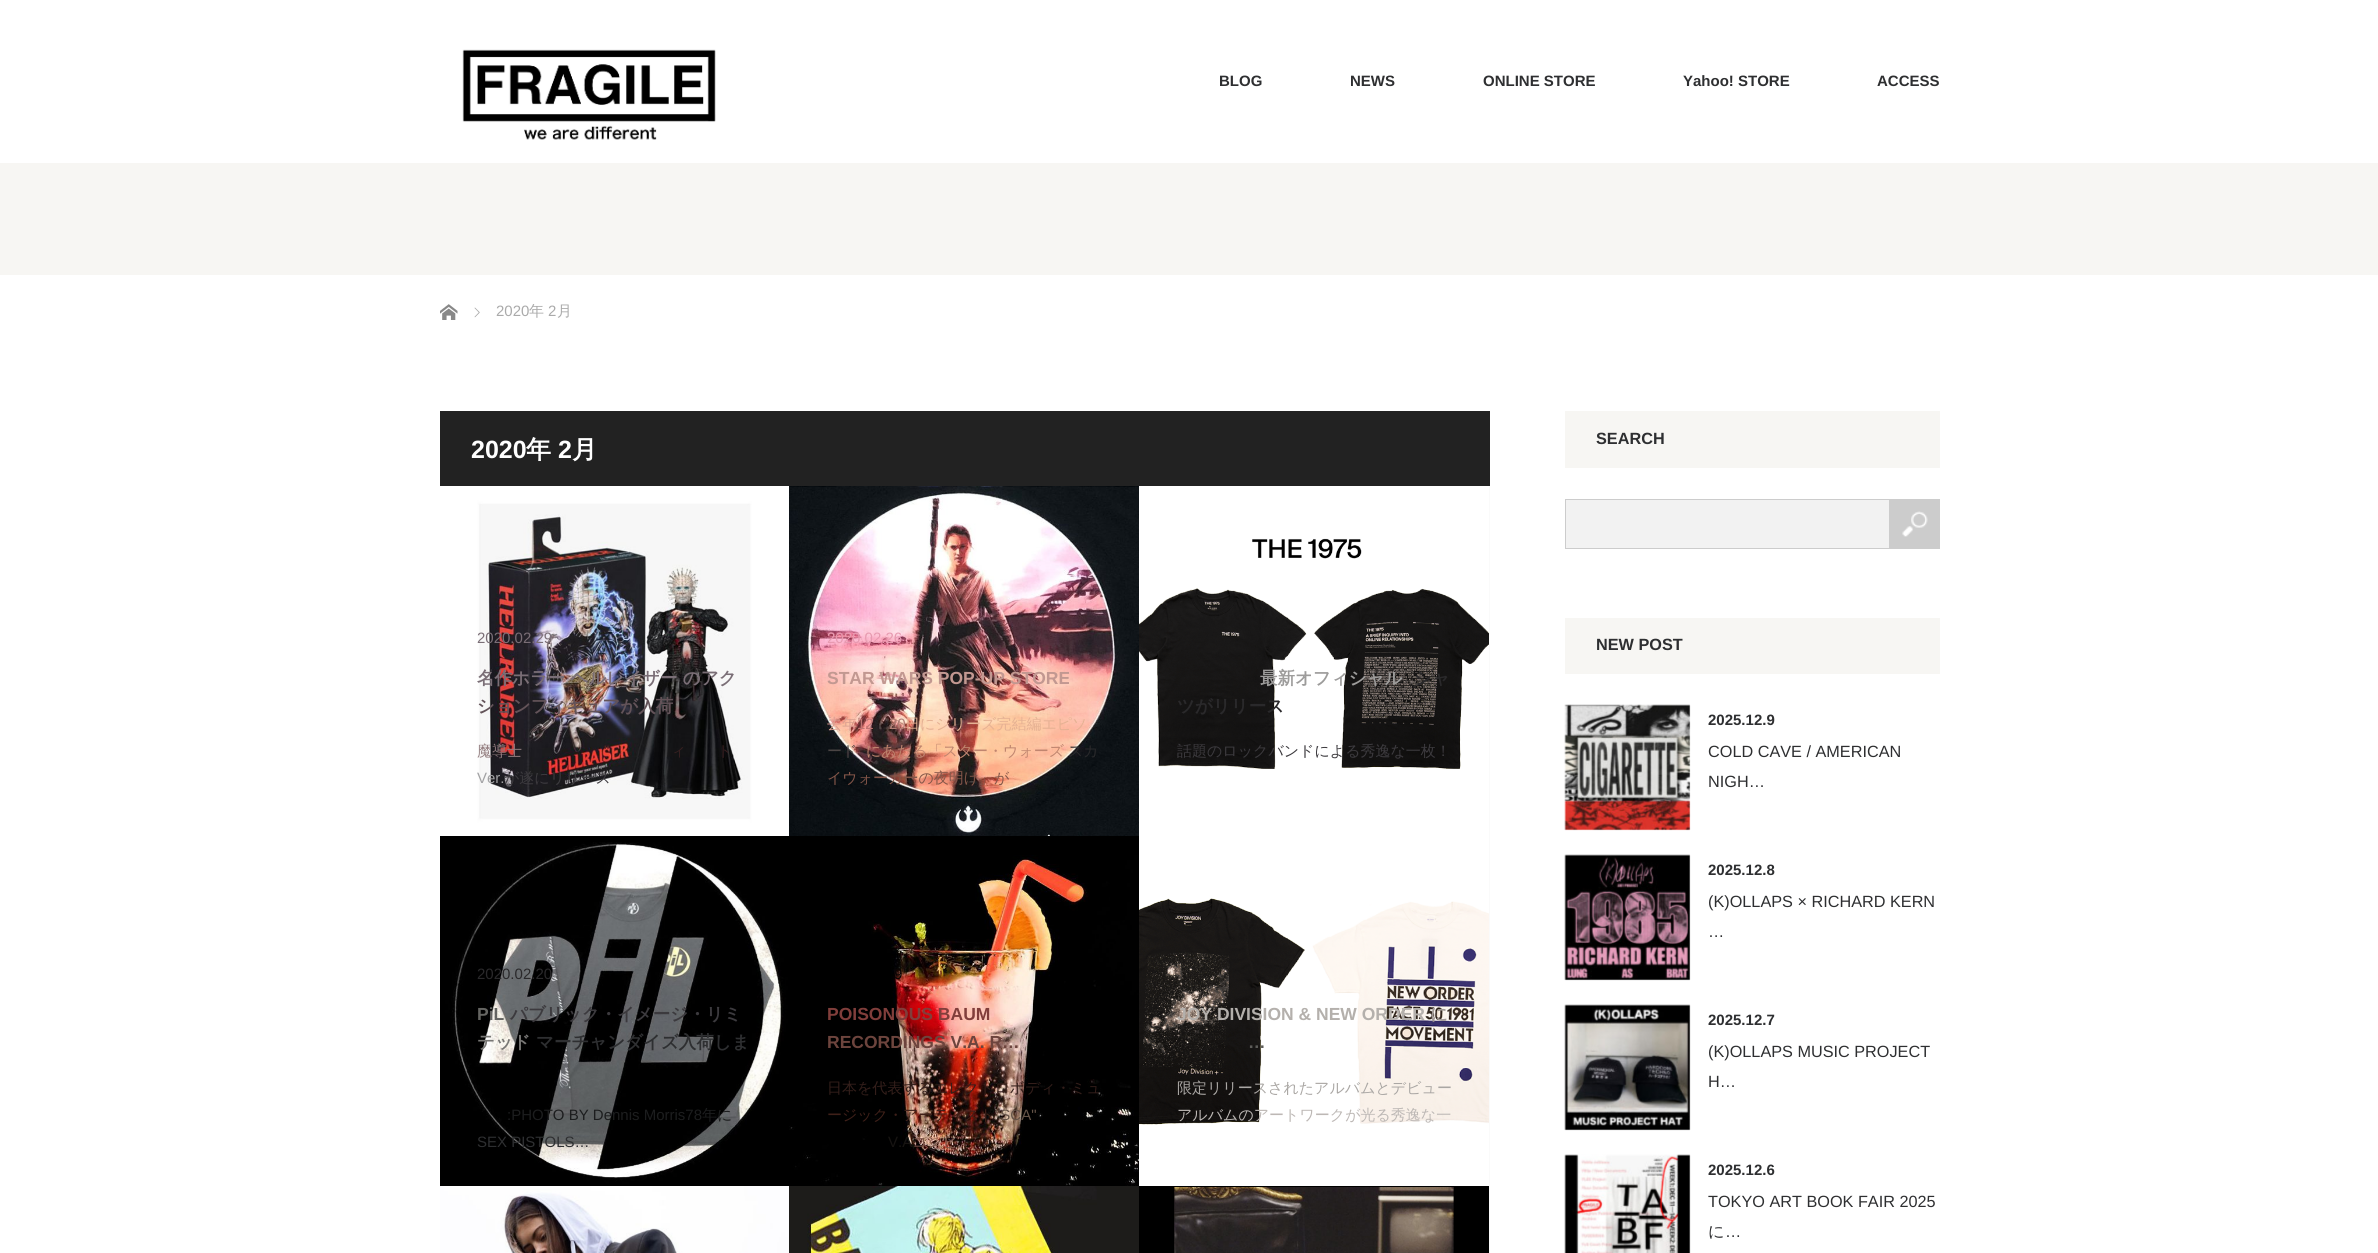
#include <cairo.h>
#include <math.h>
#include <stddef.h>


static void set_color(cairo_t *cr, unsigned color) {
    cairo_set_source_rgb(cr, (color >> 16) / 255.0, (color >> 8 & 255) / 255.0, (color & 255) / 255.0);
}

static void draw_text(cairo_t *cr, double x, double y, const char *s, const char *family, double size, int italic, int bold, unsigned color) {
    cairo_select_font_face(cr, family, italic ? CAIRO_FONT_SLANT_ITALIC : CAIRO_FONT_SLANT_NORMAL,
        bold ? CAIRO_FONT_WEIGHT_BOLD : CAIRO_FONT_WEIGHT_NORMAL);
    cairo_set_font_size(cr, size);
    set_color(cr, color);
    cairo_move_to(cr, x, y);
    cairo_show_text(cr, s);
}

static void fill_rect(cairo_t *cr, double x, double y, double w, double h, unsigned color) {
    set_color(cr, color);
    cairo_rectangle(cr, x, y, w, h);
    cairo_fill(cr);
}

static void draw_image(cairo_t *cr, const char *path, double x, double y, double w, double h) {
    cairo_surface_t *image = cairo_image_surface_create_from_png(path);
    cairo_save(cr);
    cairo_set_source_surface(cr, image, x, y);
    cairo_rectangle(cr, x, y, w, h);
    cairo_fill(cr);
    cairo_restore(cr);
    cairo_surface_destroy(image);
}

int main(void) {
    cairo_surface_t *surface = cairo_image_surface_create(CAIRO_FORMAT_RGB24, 2378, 1253);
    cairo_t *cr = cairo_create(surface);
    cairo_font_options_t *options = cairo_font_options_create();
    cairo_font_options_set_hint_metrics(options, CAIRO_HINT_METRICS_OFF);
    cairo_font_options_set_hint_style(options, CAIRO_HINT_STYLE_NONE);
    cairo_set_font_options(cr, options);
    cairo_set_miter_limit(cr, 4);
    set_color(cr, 0xF7F6F3);
    cairo_paint(cr);
    fill_rect(cr, 0, 0, 2378, 163, 0xFFFFFF);
    draw_image(cr, "assets/img1.png", 462, 49, 254, 91);
    draw_text(cr, 1219, 86, "BLOG", "Liberation Sans", 15, 0, 1, 0x2E2F31);
    draw_text(cr, 1350, 86, "NEWS", "Liberation Sans", 15, 0, 1, 0x2E2F31);
    draw_text(cr, 1483, 86, "ONLINE STORE", "Liberation Sans", 15, 0, 1, 0x2E2F31);
    draw_text(cr, 1683, 86, "Yahoo! STORE", "Liberation Sans", 15, 0, 1, 0x2E2F31);
    draw_text(cr, 1877, 86, "ACCESS", "Liberation Sans", 15, 0, 1, 0x2E2F31);
    fill_rect(cr, 0, 275, 2378, 978, 0xFFFFFF);
    draw_image(cr, "assets/img2.png", 440, 304, 18, 16);
    draw_image(cr, "assets/img3.png", 474, 307, 6, 11);
    draw_text(cr, 496, 316, "2020", "Liberation Sans", 15, 0, 0, 0xAAAAAA);
    draw_text(cr, 529, 316, "年", "WenQuanYi Zen Hei Medium", 15, 0, 0, 0xAAAAAA);
    draw_text(cr, 548, 316, "2", "Liberation Sans", 15, 0, 0, 0xAAAAAA);
    draw_text(cr, 557, 316, "月", "WenQuanYi Zen Hei Medium", 15, 0, 0, 0xAAAAAA);
    fill_rect(cr, 440, 411, 1050, 75, 0x222222);
    draw_text(cr, 471, 458, "2020", "Liberation Sans", 25, 0, 1, 0xFFFFFF);
    draw_text(cr, 526, 458, "年", "WenQuanYi Zen Hei", 25, 0, 1, 0xFFFFFF);
    draw_text(cr, 558, 458, "2", "Liberation Sans", 25, 0, 1, 0xFFFFFF);
    draw_text(cr, 572, 458, "月", "WenQuanYi Zen Hei", 25, 0, 1, 0xFFFFFF);
    fill_rect(cr, 440, 486, 1050, 767, 0xFAFAFA);
    draw_image(cr, "assets/img4.png", 440, 486, 349, 350);
    draw_text(cr, 477, 643, "2020.02.29", "Liberation Sans", 15, 0, 0, 0x7A6E76);
    draw_text(cr, 477, 684, "名作ホラー ヘルレイザー のアク", "WenQuanYi Zen Hei", 17.5, 0, 1, 0x7A6E76);
    draw_text(cr, 477, 712, "ションフィギュアが入荷", "WenQuanYi Zen Hei", 17.5, 0, 1, 0x635359);
    draw_text(cr, 477, 756, "魔導士", "WenQuanYi Zen Hei Medium", 15, 0, 0, 0x927C7E);
    draw_text(cr, 604, 756, "\"", "Liberation Sans", 15, 0, 0, 0x582623);
    draw_text(cr, 671, 756, "ィ", "WenQuanYi Zen Hei Medium", 15, 0, 0, 0x371F20);
    draw_text(cr, 717, 756, "ト", "WenQuanYi Zen Hei Medium", 15, 0, 0, 0x371F20);
    draw_text(cr, 477, 783, "Ver.", "Liberation Sans", 15, 0, 0, 0xA2A2A4);
    draw_text(cr, 504, 783, "が遂にリリース", "WenQuanYi Zen Hei Medium", 15, 0, 0, 0x3C3A3E);
    draw_image(cr, "assets/img5.png", 789, 486, 350, 350);
    draw_text(cr, 827, 643, "2020.02.26", "Liberation Sans", 15, 0, 0, 0xE79AB0);
    draw_text(cr, 827, 684, "STAR WARS POP-UP STORE", "Liberation Sans", 17.5, 0, 1, 0xC29891);
    draw_text(cr, 827, 729, "去年", "WenQuanYi Zen Hei Medium", 15, 0, 0, 0xDBA191);
    draw_text(cr, 857, 729, "12", "Liberation Sans", 15, 0, 0, 0xC07573);
    draw_text(cr, 889, 729, "20", "Liberation Sans", 15, 0, 0, 0xB17E74);
    draw_text(cr, 905, 729, "日にシリーズ完結編エピソ", "WenQuanYi Zen Hei Medium", 15, 0, 0, 0xE5B193);
    draw_text(cr, 827, 756, "ード", "WenQuanYi Zen Hei Medium", 15, 0, 0, 0x4B4544);
    draw_text(cr, 866, 756, "にあたる「スター・ウォーズ", "WenQuanYi Zen Hei Medium", 15, 0, 0, 0xC0856F);
    draw_text(cr, 1068, 756, "スカ", "WenQuanYi Zen Hei Medium", 15, 0, 0, 0x2A292B);
    draw_text(cr, 827, 783, "イウォーカーの夜明け」が", "WenQuanYi Zen Hei Medium", 15, 0, 0, 0x845649);
    draw_image(cr, "assets/img6.png", 1139, 486, 350, 350);
    draw_text(cr, 1260, 684, "最新オフィシャル", "WenQuanYi Zen Hei", 17.5, 0, 1, 0x9D9C9B);
    draw_text(cr, 1414, 684, "シャ", "WenQuanYi Zen Hei", 17.5, 0, 1, 0x2A292B);
    draw_text(cr, 1177, 712, "ツがリリース", "WenQuanYi Zen Hei", 17.5, 0, 1, 0x2A292B);
    draw_text(cr, 1177, 756, "話題のロックバンドによる秀逸な一枚！", "WenQuanYi Zen Hei Medium", 15, 0, 0, 0x3C3A3E);
    fill_rect(cr, 440, 836, 349, 350, 0x000000);
    draw_image(cr, "assets/img7.png", 440, 842, 349, 345);
    draw_text(cr, 477, 979, "2020.02.20", "Liberation Sans", 15, 0, 0, 0x2A292B);
    draw_text(cr, 477, 1020, "PiL", "Liberation Sans", 17.5, 0, 1, 0x656562);
    draw_text(cr, 510, 1020, "パブリック・イメージ・リミ", "WenQuanYi Zen Hei", 17.5, 0, 1, 0x3C3A3E);
    draw_text(cr, 477, 1048, "テッド", "WenQuanYi Zen Hei", 17.5, 0, 1, 0x787775);
    draw_text(cr, 536, 1048, "マーチャンダイズ入荷しま", "WenQuanYi Zen Hei", 17.5, 0, 1, 0x2E2F31);
    draw_text(cr, 507, 1120, ":PHOTO BY Dennis Morris78", "Liberation Sans", 15, 0, 0, 0x1C1D1E);
    draw_text(cr, 702, 1120, "年に", "WenQuanYi Zen Hei Medium", 15, 0, 0, 0x1C1D1E);
    draw_text(cr, 477, 1147, "SEX PISTOLS…", "Liberation Sans", 15, 0, 0, 0x2E2F31);
    fill_rect(cr, 789, 836, 350, 19, 0x000000);
    draw_image(cr, "assets/img8.png", 789, 855, 350, 331);
    draw_text(cr, 894, 979, "9", "Liberation Sans", 15, 0, 0, 0x0A0504);
    draw_text(cr, 827, 1020, "POISONOUS BAUM", "Liberation Sans", 17.5, 0, 1, 0x813E3B);
    draw_text(cr, 827, 1048, "RECORDINGS V.A. R…", "Liberation Sans", 17.5, 0, 1, 0x6D443D);
    draw_text(cr, 827, 1093, "日本を代表するエレクトロボディ・ミュ", "WenQuanYi Zen Hei Medium", 15, 0, 0, 0x331E1A);
    draw_text(cr, 827, 1120, "ージック・アーティスト", "WenQuanYi Zen Hei Medium", 15, 0, 0, 0x3F2019);
    draw_text(cr, 995, 1120, "\"SCA\"", "Liberation Sans", 15, 0, 0, 0x655448);
    draw_text(cr, 888, 1147, "V.A", "Liberation Sans", 15, 0, 0, 0x171412);
    draw_text(cr, 912, 1147, "コンピ", "WenQuanYi Zen Hei Medium", 15, 0, 0, 0x7A5347);
    draw_image(cr, "assets/img9.png", 1139, 836, 350, 350);
    draw_text(cr, 1210, 979, ".", "Liberation Sans", 15, 0, 0, 0x292522);
    draw_text(cr, 1177, 1020, "JOY DIVISION & NEW ORDER", "Liberation Sans", 17.5, 0, 1, 0xB4B0AC);
    draw_text(cr, 1430, 1020, "に", "WenQuanYi Zen Hei", 17.5, 0, 1, 0xA19995);
    draw_text(cr, 1248, 1048, "…", "Liberation Sans", 17.5, 0, 1, 0x5D5C59);
    draw_text(cr, 1177, 1093, "限定リリースされたアルバムとデビュー", "WenQuanYi Zen Hei Medium", 15, 0, 0, 0xAAA7A4);
    draw_text(cr, 1177, 1120, "アルバムのアートワークが光る秀逸な一", "WenQuanYi Zen Hei Medium", 15, 0, 0, 0xBDB8B5);
    draw_image(cr, "assets/img10.png", 440, 1186, 349, 67);
    draw_image(cr, "assets/img11.png", 789, 1186, 350, 67);
    fill_rect(cr, 1139, 1186, 350, 67, 0x000000);
    draw_image(cr, "assets/img12.png", 1174, 1187, 280, 66);
    fill_rect(cr, 1565, 411, 375, 57, 0xF7F6F3);
    draw_text(cr, 1596, 444, "SEARCH", "Liberation Sans", 16.25, 0, 1, 0x2E2F31);
    set_color(cr, 0xF2F2F2);
    cairo_rectangle(cr, 1565.5, 499.5, 324, 49);
    cairo_fill_preserve(cr);
    set_color(cr, 0xCCCCCC);
    cairo_set_line_width(cr, 1);
    cairo_stroke(cr);
    fill_rect(cr, 1890, 499, 50, 50, 0xCCCCCC);
    draw_image(cr, "assets/img13.png", 1902, 511, 26, 26);
    fill_rect(cr, 1565, 618, 375, 56, 0xF7F6F3);
    draw_text(cr, 1596, 650, "NEW POST", "Liberation Sans", 16.25, 0, 1, 0x2E2F31);
    draw_image(cr, "assets/img14.png", 1564, 704, 127, 127);
    draw_text(cr, 1708, 725, "2025.12.9", "Liberation Sans", 15, 0, 1, 0x2E2F31);
    draw_text(cr, 1708, 757, "COLD CAVE / AMERICAN", "Liberation Sans", 16.25, 0, 0, 0x2E2F31);
    draw_text(cr, 1708, 787, "NIGH…", "Liberation Sans", 16.25, 0, 0, 0x2E2F31);
    draw_image(cr, "assets/img15.png", 1564, 854, 127, 127);
    draw_text(cr, 1708, 875, "2025.12.8", "Liberation Sans", 15, 0, 1, 0x2E2F31);
    draw_text(cr, 1708, 907, "(K)OLLAPS × RICHARD KERN", "Liberation Sans", 16.25, 0, 0, 0x2E2F31);
    draw_text(cr, 1708, 937, "…", "Liberation Sans", 16.25, 0, 0, 0x2E2F31);
    draw_image(cr, "assets/img16.png", 1564, 1004, 127, 127);
    draw_text(cr, 1708, 1025, "2025.12.7", "Liberation Sans", 15, 0, 1, 0x2E2F31);
    draw_text(cr, 1708, 1057, "(K)OLLAPS MUSIC PROJECT", "Liberation Sans", 16.25, 0, 0, 0x2E2F31);
    draw_text(cr, 1708, 1087, "H…", "Liberation Sans", 16.25, 0, 0, 0x2E2F31);
    draw_image(cr, "assets/img17.png", 1564, 1154, 127, 99);
    draw_text(cr, 1708, 1175, "2025.12.6", "Liberation Sans", 15, 0, 1, 0x2E2F31);
    draw_text(cr, 1708, 1207, "TOKYO ART BOOK FAIR 2025", "Liberation Sans", 16.25, 0, 0, 0x2E2F31);
    draw_text(cr, 1708, 1237, "に", "WenQuanYi Zen Hei Medium", 16.25, 0, 0, 0x2E2F31);
    draw_text(cr, 1725, 1237, "…", "Liberation Sans", 16.25, 0, 0, 0x2E2F31);
    cairo_surface_write_to_png(surface, "output.png");
    cairo_font_options_destroy(options);
    cairo_destroy(cr);
    cairo_surface_destroy(surface);
    return 0;
}
